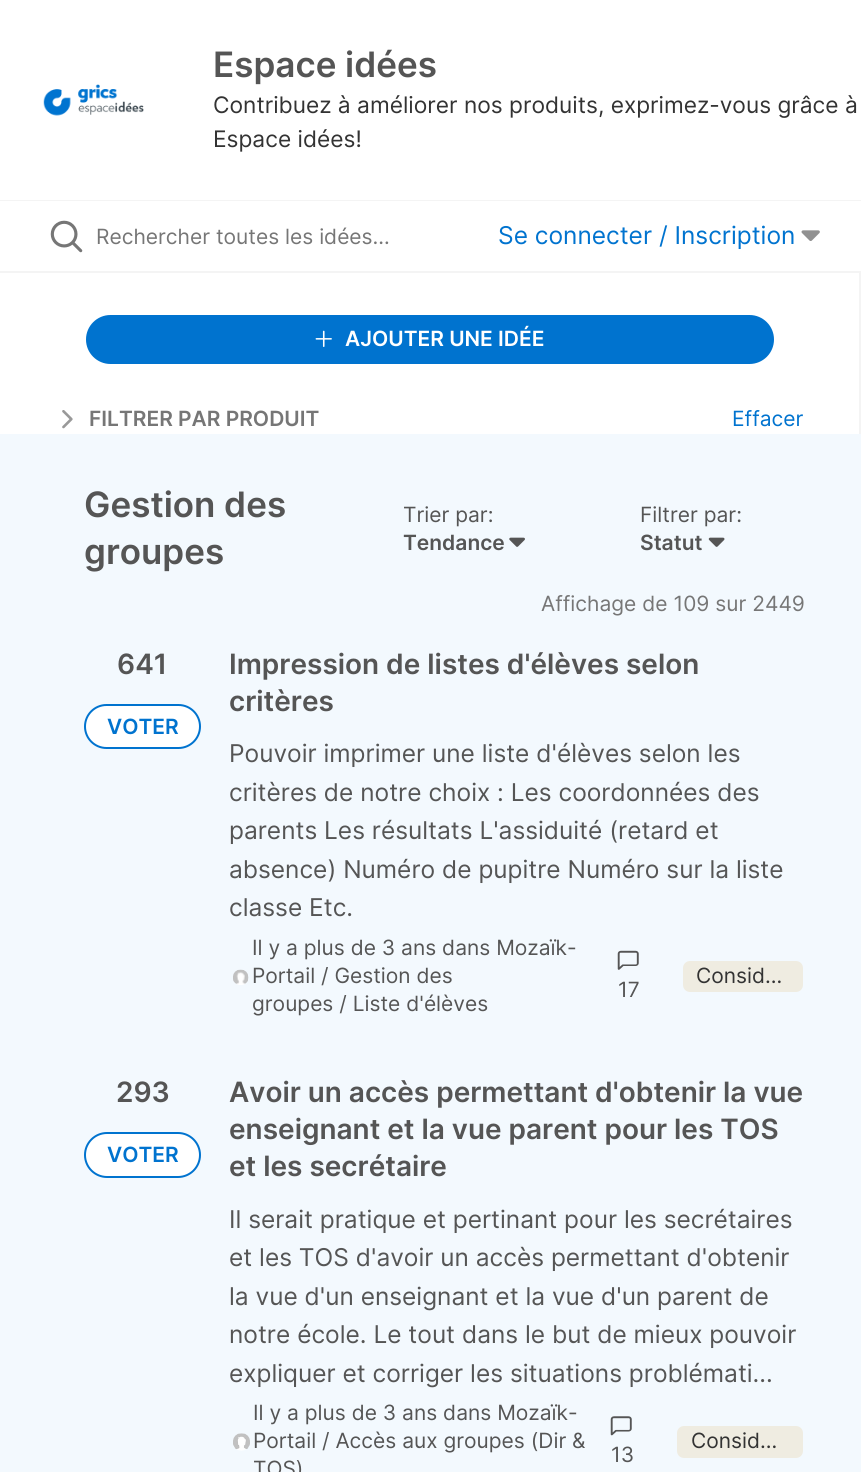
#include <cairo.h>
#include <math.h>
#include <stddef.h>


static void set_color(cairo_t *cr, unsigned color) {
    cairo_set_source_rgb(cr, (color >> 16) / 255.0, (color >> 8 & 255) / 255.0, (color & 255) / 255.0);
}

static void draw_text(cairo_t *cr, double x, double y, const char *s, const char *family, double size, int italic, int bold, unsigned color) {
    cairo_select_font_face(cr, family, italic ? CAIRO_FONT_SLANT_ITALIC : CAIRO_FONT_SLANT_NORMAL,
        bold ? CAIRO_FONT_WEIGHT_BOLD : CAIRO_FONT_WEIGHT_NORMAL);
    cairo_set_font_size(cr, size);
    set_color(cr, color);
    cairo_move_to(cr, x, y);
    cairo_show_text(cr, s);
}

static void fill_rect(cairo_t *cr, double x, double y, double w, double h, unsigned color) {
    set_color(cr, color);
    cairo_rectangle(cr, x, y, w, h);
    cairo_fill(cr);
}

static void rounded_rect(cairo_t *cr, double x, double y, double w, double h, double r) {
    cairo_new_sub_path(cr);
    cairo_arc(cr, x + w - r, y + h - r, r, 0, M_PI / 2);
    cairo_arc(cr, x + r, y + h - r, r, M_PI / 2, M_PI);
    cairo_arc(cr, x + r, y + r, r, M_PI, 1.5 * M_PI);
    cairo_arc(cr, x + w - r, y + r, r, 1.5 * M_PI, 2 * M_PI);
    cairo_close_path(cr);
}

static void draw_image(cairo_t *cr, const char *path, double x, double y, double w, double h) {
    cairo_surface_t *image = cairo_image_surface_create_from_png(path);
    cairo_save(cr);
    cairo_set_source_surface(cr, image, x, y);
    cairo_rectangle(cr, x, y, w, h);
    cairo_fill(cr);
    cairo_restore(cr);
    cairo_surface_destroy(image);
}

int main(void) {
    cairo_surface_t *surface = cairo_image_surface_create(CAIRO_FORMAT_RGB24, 861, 1472);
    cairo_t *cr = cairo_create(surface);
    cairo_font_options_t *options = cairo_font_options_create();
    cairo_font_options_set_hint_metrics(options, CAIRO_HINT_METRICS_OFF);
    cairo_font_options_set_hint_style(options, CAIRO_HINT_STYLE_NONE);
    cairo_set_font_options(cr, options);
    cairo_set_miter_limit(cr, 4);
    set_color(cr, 0xF3F9FE);
    cairo_paint(cr);
    fill_rect(cr, 0, 0, 861, 200, 0xFFFFFF);
    fill_rect(cr, 0, 200, 861, 1, 0xF4F4F4);
    draw_image(cr, "assets/img1.png", 43, 84, 101, 32);
    draw_text(cr, 213, 77, "Espace idées", "Inter SemiBold", 35, 0, 0, 0x555555);
    draw_text(cr, 213, 113, "Contribuez à améliorer nos produits, exprimez-vous grâce à", "Inter", 22.75, 0, 0, 0x333333);
    draw_text(cr, 213, 147, "Espace idées!", "Inter", 22.75, 0, 0, 0x333333);
    fill_rect(cr, 0, 201, 861, 70, 0xFFFFFF);
    fill_rect(cr, 0, 271, 861, 2, 0xF4F4F4);
    draw_image(cr, "assets/img2.png", 50, 220, 33, 33);
    draw_text(cr, 96, 244, "Rechercher toutes les idées…", "Inter", 21, 0, 0, 0x767676);
    draw_text(cr, 498, 244, "Se connecter / Inscription", "Inter", 24.5, 0, 0, 0x0073CF);
    draw_image(cr, "assets/img3.png", 801, 230, 19, 11);
    fill_rect(cr, 0, 273, 859, 161, 0xFFFFFF);
    fill_rect(cr, 859, 273, 2, 161, 0xF4F4F4);
    set_color(cr, 0x0073CF);
    rounded_rect(cr, 86, 315, 688, 49, 24.5);
    cairo_fill(cr);
    draw_image(cr, "assets/img4.png", 315, 330, 17, 17);
    draw_text(cr, 345, 346, "AJOUTER UNE IDÉE", "Inter SemiBold", 21, 0, 0, 0xFFFFFF);
    draw_image(cr, "assets/img5.png", 62, 410, 11, 19);
    draw_text(cr, 89, 426, "FILTRER PAR PRODUIT", "Inter SemiBold", 21, 0, 0, 0x767676);
    draw_text(cr, 732, 426, "Effacer", "Inter", 21, 0, 0, 0x0073CF);
    draw_text(cr, 84, 517, "Gestion des", "Inter SemiBold", 35, 0, 0, 0x555555);
    draw_text(cr, 84, 564, "groupes", "Inter SemiBold", 35, 0, 0, 0x555555);
    draw_text(cr, 403, 522, "Trier par:", "Inter", 21, 0, 0, 0x555555);
    draw_text(cr, 403, 550, "Tendance", "Inter SemiBold", 21, 0, 0, 0x555555);
    draw_image(cr, "assets/img6.png", 509, 537, 16, 10);
    draw_text(cr, 640, 522, "Filtrer par:", "Inter", 21, 0, 0, 0x555555);
    draw_text(cr, 640, 550, "Statut", "Inter SemiBold", 21, 0, 0, 0x555555);
    draw_image(cr, "assets/img7.png", 708, 537, 17, 10);
    draw_text(cr, 541, 611, "Affichage de 109 sur 2449", "Inter", 21, 0, 0, 0x767676);
    draw_text(cr, 117, 674, "641", "Inter SemiBold", 28, 0, 0, 0x555555);
    set_color(cr, 0xFFFFFF);
    rounded_rect(cr, 85, 705, 115, 43, 21.5);
    cairo_fill_preserve(cr);
    set_color(cr, 0x0073CF);
    cairo_stroke(cr);
    draw_text(cr, 107, 734, "VOTER", "Inter SemiBold", 21, 0, 0, 0x0073CF);
    draw_text(cr, 229, 674, "Impression de listes d'élèves selon", "Inter SemiBold", 28, 0, 0, 0x555555);
    draw_text(cr, 229, 711, "critères", "Inter SemiBold", 28, 0, 0, 0x555555);
    draw_text(cr, 229, 762, "Pouvoir imprimer une liste d'élèves selon les", "Inter", 24.5, 0, 0, 0x555555);
    draw_text(cr, 229, 801, "critères de notre choix : Les coordonnées des", "Inter", 24.5, 0, 0, 0x555555);
    draw_text(cr, 229, 839, "parents Les résultats L'assiduité (retard et", "Inter", 24.5, 0, 0, 0x555555);
    draw_text(cr, 229, 878, "absence) Numéro de pupitre Numéro sur la liste", "Inter", 24.5, 0, 0, 0x555555);
    draw_text(cr, 229, 916, "classe Etc.", "Inter", 24.5, 0, 0, 0x555555);
    draw_image(cr, "assets/img8.png", 233, 969, 16, 16);
    draw_text(cr, 252, 955, "Il y a plus de 3 ans dans Mozaïk-", "Inter", 21, 0, 0, 0x555555);
    draw_text(cr, 252, 983, "Portail / Gestion des", "Inter", 21, 0, 0, 0x555555);
    draw_text(cr, 252, 1011, "groupes / Liste d'élèves", "Inter", 21, 0, 0, 0x555555);
    set_color(cr, 0xEFECE1);
    rounded_rect(cr, 683, 961, 120, 31, 7);
    cairo_fill(cr);
    draw_text(cr, 696, 983, "Consid…", "Inter", 21, 0, 0, 0x333333);
    draw_image(cr, "assets/img9.png", 617, 950, 22, 20);
    draw_text(cr, 618, 997, "17", "Inter", 21, 0, 0, 0x555555);
    draw_text(cr, 116, 1102, "293", "Inter SemiBold", 28, 0, 0, 0x555555);
    set_color(cr, 0xFFFFFF);
    rounded_rect(cr, 85, 1133, 115, 44, 22);
    cairo_fill_preserve(cr);
    set_color(cr, 0x0073CF);
    cairo_stroke(cr);
    draw_text(cr, 107, 1162, "VOTER", "Inter SemiBold", 21, 0, 0, 0x0073CF);
    draw_text(cr, 229, 1102, "Avoir un accès permettant d'obtenir la vue", "Inter SemiBold", 28, 0, 0, 0x555555);
    draw_text(cr, 229, 1139, "enseignant et la vue parent pour les TOS", "Inter SemiBold", 28, 0, 0, 0x555555);
    draw_text(cr, 229, 1176, "et les secrétaire", "Inter SemiBold", 28, 0, 0, 0x555555);
    draw_text(cr, 229, 1228, "Il serait pratique et pertinant pour les secrétaires", "Inter", 24.5, 0, 0, 0x555555);
    draw_text(cr, 229, 1266, "et les TOS d'avoir un accès permettant d'obtenir", "Inter", 24.5, 0, 0, 0x555555);
    draw_text(cr, 229, 1305, "la vue d'un enseignant et la vue d'un parent de", "Inter", 24.5, 0, 0, 0x555555);
    draw_text(cr, 229, 1343, "notre école. Le tout dans le but de mieux pouvoir", "Inter", 24.5, 0, 0, 0x555555);
    draw_text(cr, 229, 1382, "expliquer et corriger les situations problémati...", "Inter", 24.5, 0, 0, 0x555555);
    draw_image(cr, "assets/img10.png", 233, 1433, 17, 18);
    draw_text(cr, 253, 1420, "Il y a plus de 3 ans dans Mozaïk-", "Inter", 21, 0, 0, 0x555555);
    draw_text(cr, 253, 1448, "Portail / Accès aux groupes (Dir &", "Inter", 21, 0, 0, 0x555555);
    draw_text(cr, 253, 1476, "TOS)", "Inter", 21, 0, 0, 0x555555);
    set_color(cr, 0xEFECE1);
    rounded_rect(cr, 677, 1426, 126, 32, 7);
    cairo_fill(cr);
    draw_text(cr, 691, 1448, "Consid…", "Inter", 21, 0, 0, 0x333333);
    draw_image(cr, "assets/img11.png", 610, 1416, 22, 20);
    draw_text(cr, 611, 1462, "13", "Inter", 21, 0, 0, 0x555555);
    cairo_surface_write_to_png(surface, "output.png");
    cairo_font_options_destroy(options);
    cairo_destroy(cr);
    cairo_surface_destroy(surface);
    return 0;
}
